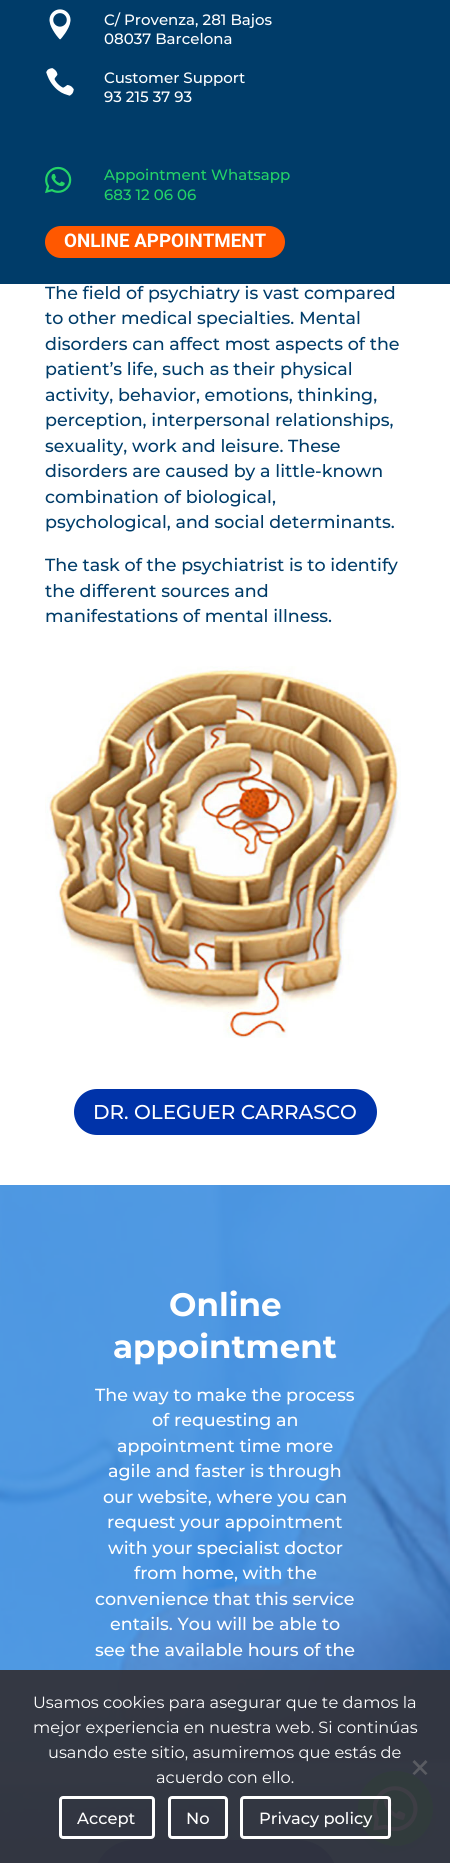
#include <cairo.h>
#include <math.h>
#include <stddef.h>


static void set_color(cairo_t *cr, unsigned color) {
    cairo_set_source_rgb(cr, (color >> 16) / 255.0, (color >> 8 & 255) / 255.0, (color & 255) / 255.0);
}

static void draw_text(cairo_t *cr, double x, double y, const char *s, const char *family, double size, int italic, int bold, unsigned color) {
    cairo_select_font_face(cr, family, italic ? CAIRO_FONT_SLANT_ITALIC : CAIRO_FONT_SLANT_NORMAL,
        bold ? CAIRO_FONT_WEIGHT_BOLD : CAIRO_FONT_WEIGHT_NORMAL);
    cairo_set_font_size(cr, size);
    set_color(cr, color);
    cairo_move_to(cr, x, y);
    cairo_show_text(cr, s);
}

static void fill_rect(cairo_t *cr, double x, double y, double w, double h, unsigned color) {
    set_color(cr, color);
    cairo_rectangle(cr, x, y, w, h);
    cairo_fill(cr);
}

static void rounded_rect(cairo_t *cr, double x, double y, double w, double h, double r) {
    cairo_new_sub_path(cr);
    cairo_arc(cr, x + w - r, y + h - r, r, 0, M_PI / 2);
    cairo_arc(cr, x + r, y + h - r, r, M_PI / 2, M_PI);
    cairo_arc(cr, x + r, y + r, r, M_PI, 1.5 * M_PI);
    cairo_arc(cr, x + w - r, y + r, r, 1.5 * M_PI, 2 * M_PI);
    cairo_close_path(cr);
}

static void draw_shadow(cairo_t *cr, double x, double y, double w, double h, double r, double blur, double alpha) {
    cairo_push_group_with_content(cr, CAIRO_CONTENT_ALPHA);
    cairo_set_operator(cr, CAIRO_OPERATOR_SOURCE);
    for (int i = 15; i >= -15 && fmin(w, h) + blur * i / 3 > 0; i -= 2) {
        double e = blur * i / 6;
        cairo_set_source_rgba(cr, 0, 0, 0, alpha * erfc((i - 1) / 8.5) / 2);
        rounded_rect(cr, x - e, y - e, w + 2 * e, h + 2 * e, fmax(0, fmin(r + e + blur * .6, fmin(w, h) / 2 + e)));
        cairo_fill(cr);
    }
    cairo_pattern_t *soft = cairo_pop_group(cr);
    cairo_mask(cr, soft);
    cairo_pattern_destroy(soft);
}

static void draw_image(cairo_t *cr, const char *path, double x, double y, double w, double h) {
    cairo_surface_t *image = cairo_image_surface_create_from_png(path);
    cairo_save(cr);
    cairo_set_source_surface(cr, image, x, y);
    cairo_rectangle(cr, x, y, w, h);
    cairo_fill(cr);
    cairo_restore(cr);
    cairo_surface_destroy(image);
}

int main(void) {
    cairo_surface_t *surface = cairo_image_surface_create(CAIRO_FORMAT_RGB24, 450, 1863);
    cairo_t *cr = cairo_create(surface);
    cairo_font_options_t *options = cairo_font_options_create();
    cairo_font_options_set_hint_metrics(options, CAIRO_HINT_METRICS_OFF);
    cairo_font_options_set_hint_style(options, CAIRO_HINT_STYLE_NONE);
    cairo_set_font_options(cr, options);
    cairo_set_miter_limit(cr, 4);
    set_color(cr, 0xFFFFFF);
    cairo_paint(cr);
    fill_rect(cr, 0, 0, 450, 284, 0x003C69);
    draw_image(cr, "assets/img1.png", 49, 9, 22, 31);
    draw_text(cr, 104, 25, "C/ Provenza, 281 Bajos", "Montserrat Medium", 15, 0, 0, 0xFFFFFF);
    draw_text(cr, 104, 44, "08037 Barcelona", "Montserrat Medium", 15, 0, 0, 0xFFFFFF);
    draw_image(cr, "assets/img2.png", 46, 68, 28, 28);
    draw_text(cr, 104, 83, "Customer Support", "Montserrat Medium", 15, 0, 0, 0xFFFFFF);
    draw_text(cr, 104, 102, "93 215 37 93", "Montserrat Medium", 15, 0, 0, 0xFFFFFF);
    draw_image(cr, "assets/img3.png", 45, 166, 27, 28);
    draw_text(cr, 104, 180, "Appointment Whatsapp", "Montserrat Medium", 15, 0, 0, 0x24D367);
    draw_text(cr, 104, 200, "683 12 06 06", "Montserrat Medium", 15, 0, 0, 0x24D367);
    set_color(cr, 0xFF5800);
    rounded_rect(cr, 45, 226, 240, 32, 16);
    cairo_fill(cr);
    draw_text(cr, 64, 247, "ONLINE APPOINTMENT", "Roboto", 18.75, 0, 1, 0xFFFFFF);
    draw_text(cr, 45, 299, "The field of psychiatry is vast compared", "Montserrat Medium", 17.5, 0, 0, 0x003C69);
    draw_text(cr, 45, 324, "to other medical specialties. Mental", "Montserrat Medium", 17.5, 0, 0, 0x003C69);
    draw_text(cr, 45, 350, "disorders can affect most aspects of the", "Montserrat Medium", 17.5, 0, 0, 0x003C69);
    draw_text(cr, 45, 375, "patient’s life, such as their physical", "Montserrat Medium", 17.5, 0, 0, 0x003C69);
    draw_text(cr, 45, 401, "activity, behavior, emotions, thinking,", "Montserrat Medium", 17.5, 0, 0, 0x003C69);
    draw_text(cr, 45, 426, "perception, interpersonal relationships,", "Montserrat Medium", 17.5, 0, 0, 0x003C69);
    draw_text(cr, 45, 452, "sexuality, work and leisure. These", "Montserrat Medium", 17.5, 0, 0, 0x003C69);
    draw_text(cr, 45, 477, "disorders are caused by a little-known", "Montserrat Medium", 17.5, 0, 0, 0x003C69);
    draw_text(cr, 45, 503, "combination of biological,", "Montserrat Medium", 17.5, 0, 0, 0x003C69);
    draw_text(cr, 45, 528, "psychological, and social determinants.", "Montserrat Medium", 17.5, 0, 0, 0x003C69);
    draw_text(cr, 45, 571, "The task of the psychiatrist is to identify", "Montserrat Medium", 17.5, 0, 0, 0x003C69);
    draw_text(cr, 45, 597, "the different sources and", "Montserrat Medium", 17.5, 0, 0, 0x003C69);
    draw_text(cr, 45, 622, "manifestations of mental illness.", "Montserrat Medium", 17.5, 0, 0, 0x003C69);
    draw_image(cr, "assets/img4.png", 45, 666, 356, 372);
    set_color(cr, 0x0033A9);
    rounded_rect(cr, 72.5, 1087.5, 306, 49, 24.5);
    cairo_fill_preserve(cr);
    set_color(cr, 0xFFFFFF);
    cairo_set_line_width(cr, 3);
    cairo_stroke(cr);
    draw_text(cr, 93, 1119, "DR. OLEGUER CARRASCO", "Montserrat Medium", 20, 0, 0, 0xFFFFFF);
    draw_image(cr, "assets/img5.png", 0, 1185, 450, 678);
    draw_text(cr, 169, 1316, "Online", "Montserrat", 32.5, 0, 1, 0xFFFFFF);
    draw_text(cr, 113, 1358, "appointment", "Montserrat", 32.5, 0, 1, 0xFFFFFF);
    draw_text(cr, 95, 1401, "The way to make the process", "Montserrat Medium", 17.5, 0, 0, 0xFFFFFF);
    draw_text(cr, 152, 1426, "of requesting an", "Montserrat Medium", 17.5, 0, 0, 0xFFFFFF);
    draw_text(cr, 117, 1452, "appointment time more", "Montserrat Medium", 17.5, 0, 0, 0xFFFFFF);
    draw_text(cr, 108, 1477, "agile and faster is through", "Montserrat Medium", 17.5, 0, 0, 0xFFFFFF);
    draw_text(cr, 103, 1503, "our website, where you can", "Montserrat Medium", 17.5, 0, 0, 0xFFFFFF);
    draw_text(cr, 107, 1528, "request your appointment", "Montserrat Medium", 17.5, 0, 0, 0xFFFFFF);
    draw_text(cr, 108, 1554, "with your specialist doctor", "Montserrat Medium", 17.5, 0, 0, 0xFFFFFF);
    draw_text(cr, 134, 1579, "from home, with the", "Montserrat Medium", 17.5, 0, 0, 0xFFFFFF);
    draw_text(cr, 95, 1605, "convenience that this service", "Montserrat Medium", 17.5, 0, 0, 0xFFFFFF);
    draw_text(cr, 110, 1630, "entails. You will be able to", "Montserrat Medium", 17.5, 0, 0, 0xFFFFFF);
    draw_text(cr, 95, 1656, "see the available hours of the", "Montserrat Medium", 17.5, 0, 0, 0xFFFFFF);
    set_color(cr, 0x0033A9);
    rounded_rect(cr, 94, 1840, 244, 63, 40);
    cairo_fill(cr);
    set_color(cr, 0x075E54);
    draw_shadow(cr, 359, 1779, 75, 75, 37.5, 15, 0.24);
    set_color(cr, 0x25D366);
    cairo_arc(cr, 395.5, 1808.5, 37.5, 0, 2 * M_PI);
    cairo_fill(cr);
    draw_image(cr, "assets/img6.png", 373, 1786, 45, 45);
    cairo_set_source_rgba(cr, 0.196, 0.196, 0.227, 0.94);
    cairo_rectangle(cr, 0, 1670, 450, 193);
    cairo_fill(cr);
    draw_text(cr, 33, 1708, "Usamos cookies para asegurar que te damos la", "Montserrat", 16.25, 0, 0, 0xFFFFFF);
    draw_text(cr, 33, 1733, "mejor experiencia en nuestra web. Si continúas", "Montserrat", 16.25, 0, 0, 0xFFFFFF);
    draw_text(cr, 48, 1758, "usando este sitio, asumiremos que estás de", "Montserrat", 16.25, 0, 0, 0xFFFFFF);
    draw_text(cr, 156, 1783, "acuerdo con ello.", "Montserrat", 16.25, 0, 0, 0xFFFFFF);
    set_color(cr, 0x5A5C62);
    cairo_new_path(cr);
    cairo_move_to(cr, 425.5, 1760);
    cairo_line_to(cr, 427.5, 1762);
    cairo_line_to(cr, 414.5, 1775);
    cairo_line_to(cr, 412.5, 1773.5);
    cairo_close_path(cr);
    cairo_fill(cr);
    cairo_new_path(cr);
    cairo_move_to(cr, 412.5, 1762);
    cairo_line_to(cr, 414.5, 1760);
    cairo_line_to(cr, 427.5, 1773.5);
    cairo_line_to(cr, 425.5, 1775);
    cairo_close_path(cr);
    cairo_fill(cr);
    rounded_rect(cr, 60.5, 1797.5, 93, 40, 2.5);
    set_color(cr, 0xFFFFFF);
    cairo_stroke(cr);
    draw_text(cr, 77, 1824, "Accept", "Montserrat Medium", 16.25, 0, 0, 0xFFFFFF);
    rounded_rect(cr, 169.5, 1797.5, 57, 40, 2.5);
    cairo_stroke(cr);
    draw_text(cr, 186, 1824, "No", "Montserrat Medium", 16.25, 0, 0, 0xFFFFFF);
    rounded_rect(cr, 241.5, 1797.5, 148, 40, 2.5);
    cairo_stroke(cr);
    draw_text(cr, 259, 1824, "Privacy policy", "Montserrat Medium", 16.25, 0, 0, 0xFFFFFF);
    cairo_surface_write_to_png(surface, "output.png");
    cairo_font_options_destroy(options);
    cairo_destroy(cr);
    cairo_surface_destroy(surface);
    return 0;
}
